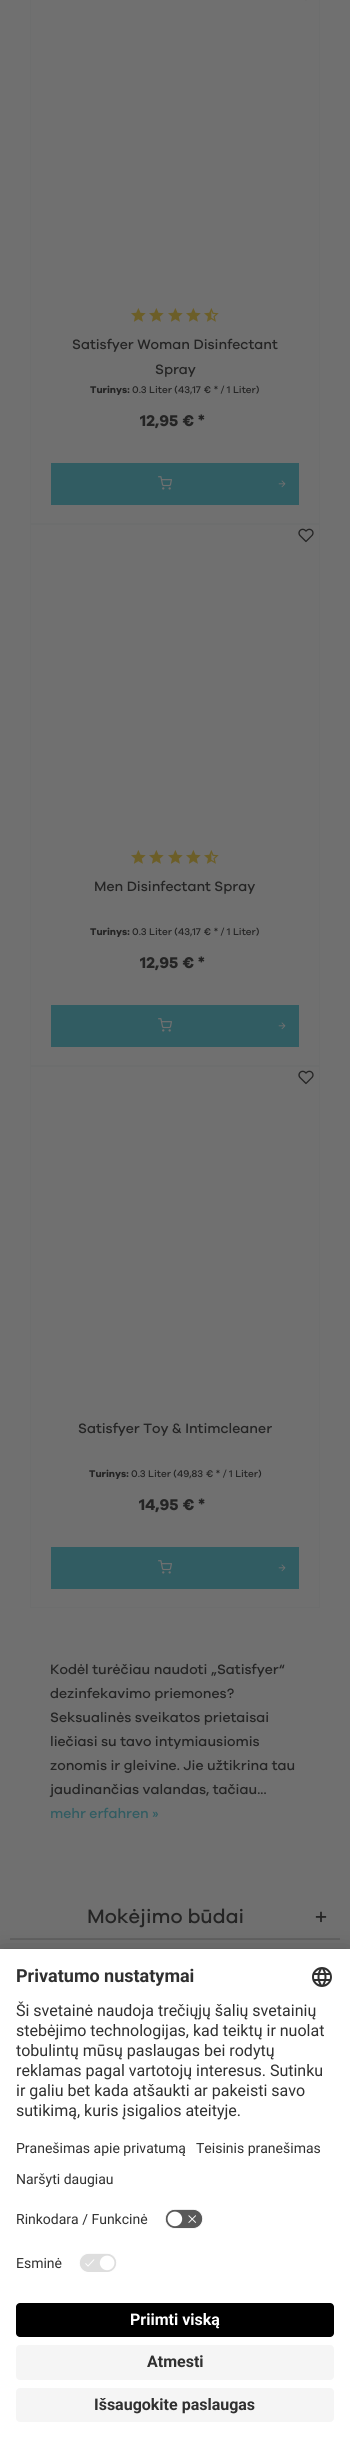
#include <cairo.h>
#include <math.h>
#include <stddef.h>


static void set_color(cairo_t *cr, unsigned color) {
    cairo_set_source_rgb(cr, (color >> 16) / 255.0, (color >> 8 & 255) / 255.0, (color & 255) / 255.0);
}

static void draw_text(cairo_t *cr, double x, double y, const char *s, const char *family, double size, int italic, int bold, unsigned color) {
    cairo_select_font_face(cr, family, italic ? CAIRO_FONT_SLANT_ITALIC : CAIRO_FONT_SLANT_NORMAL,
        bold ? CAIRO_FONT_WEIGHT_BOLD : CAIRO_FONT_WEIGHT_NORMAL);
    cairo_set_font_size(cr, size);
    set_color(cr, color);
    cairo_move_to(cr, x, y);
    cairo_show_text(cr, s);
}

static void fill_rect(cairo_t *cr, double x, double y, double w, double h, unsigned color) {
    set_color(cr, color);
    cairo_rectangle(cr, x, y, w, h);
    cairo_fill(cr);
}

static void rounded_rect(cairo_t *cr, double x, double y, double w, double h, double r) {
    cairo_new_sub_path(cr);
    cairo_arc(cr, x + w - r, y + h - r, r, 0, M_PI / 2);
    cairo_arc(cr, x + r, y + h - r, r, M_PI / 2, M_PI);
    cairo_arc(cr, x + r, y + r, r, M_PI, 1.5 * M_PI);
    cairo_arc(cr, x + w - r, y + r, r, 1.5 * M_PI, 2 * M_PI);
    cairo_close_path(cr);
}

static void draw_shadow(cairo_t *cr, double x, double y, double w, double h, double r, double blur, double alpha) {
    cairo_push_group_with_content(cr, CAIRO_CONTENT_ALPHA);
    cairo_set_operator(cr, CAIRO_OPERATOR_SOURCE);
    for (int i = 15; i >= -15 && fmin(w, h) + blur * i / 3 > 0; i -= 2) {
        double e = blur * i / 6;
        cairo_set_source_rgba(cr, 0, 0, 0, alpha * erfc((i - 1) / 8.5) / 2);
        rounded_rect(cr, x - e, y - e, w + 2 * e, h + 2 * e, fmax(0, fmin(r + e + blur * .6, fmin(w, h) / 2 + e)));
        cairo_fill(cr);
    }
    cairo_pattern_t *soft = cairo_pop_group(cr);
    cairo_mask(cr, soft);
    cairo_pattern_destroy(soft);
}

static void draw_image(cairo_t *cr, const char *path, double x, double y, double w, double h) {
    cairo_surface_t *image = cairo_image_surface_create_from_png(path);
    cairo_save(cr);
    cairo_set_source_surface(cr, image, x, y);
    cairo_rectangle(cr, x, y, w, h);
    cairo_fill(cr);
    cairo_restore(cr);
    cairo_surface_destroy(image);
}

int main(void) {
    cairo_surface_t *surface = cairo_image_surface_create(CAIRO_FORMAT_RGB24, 350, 2450);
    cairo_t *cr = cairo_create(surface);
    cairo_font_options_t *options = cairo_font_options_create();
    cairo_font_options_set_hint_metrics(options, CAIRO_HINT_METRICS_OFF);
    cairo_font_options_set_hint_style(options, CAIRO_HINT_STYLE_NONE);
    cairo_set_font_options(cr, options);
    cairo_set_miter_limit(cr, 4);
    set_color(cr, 0x707070);
    cairo_paint(cr);
    cairo_rectangle(cr, 30.5, -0.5, 289, 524);
    set_color(cr, 0x6D6E6E);
    cairo_set_line_width(cr, 1);
    cairo_stroke(cr);
    draw_image(cr, "assets/img1.png", 305, 0, 2, 1);
    draw_image(cr, "assets/img2.png", 131, 308, 15, 14);
    draw_image(cr, "assets/img2.png", 149, 308, 15, 14);
    draw_image(cr, "assets/img2.png", 168, 308, 15, 14);
    draw_image(cr, "assets/img2.png", 186, 308, 15, 14);
    draw_image(cr, "assets/img3.png", 204, 308, 15, 14);
    draw_text(cr, 72, 349, "Satisfyer Woman Disinfectant", "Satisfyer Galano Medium", 14, 0, 0, 0x242424);
    draw_text(cr, 155, 374, "Spray", "Satisfyer Galano Medium", 14, 0, 0, 0x242424);
    draw_text(cr, 90, 393, "Turinys:", "Satisfyer Galano", 10, 0, 1, 0x242424);
    draw_text(cr, 132, 393, "0.3 Liter (43,17 € * / 1 Liter)", "Satisfyer Galano Medium", 10, 0, 0, 0x242424);
    draw_text(cr, 140, 426, "12,95 € *", "Satisfyer Galano", 16, 0, 1, 0x242424);
    fill_rect(cr, 51, 463, 248, 42, 0x315C62);
    draw_image(cr, "assets/img4.png", 158, 476, 14, 14);
    draw_image(cr, "assets/img5.png", 278, 480, 8, 8);
    cairo_rectangle(cr, 30.5, 524.5, 289, 541);
    set_color(cr, 0x6D6E6E);
    cairo_stroke(cr);
    draw_image(cr, "assets/img6.png", 298, 528, 16, 15);
    draw_image(cr, "assets/img2.png", 131, 850, 15, 14);
    draw_image(cr, "assets/img2.png", 149, 850, 15, 14);
    draw_image(cr, "assets/img2.png", 168, 850, 15, 14);
    draw_image(cr, "assets/img2.png", 186, 850, 15, 14);
    draw_image(cr, "assets/img3.png", 204, 850, 15, 14);
    draw_text(cr, 94, 891, "Men Disinfectant Spray", "Satisfyer Galano Medium", 14, 0, 0, 0x242424);
    draw_text(cr, 90, 935, "Turinys:", "Satisfyer Galano", 10, 0, 1, 0x242424);
    draw_text(cr, 132, 935, "0.3 Liter (43,17 € * / 1 Liter)", "Satisfyer Galano Medium", 10, 0, 0, 0x242424);
    draw_text(cr, 140, 968, "12,95 € *", "Satisfyer Galano", 16, 0, 1, 0x242424);
    fill_rect(cr, 51, 1005, 248, 42, 0x315C62);
    draw_image(cr, "assets/img4.png", 158, 1018, 14, 14);
    draw_image(cr, "assets/img5.png", 278, 1022, 8, 8);
    cairo_rectangle(cr, 30.5, 1066.5, 289, 541);
    set_color(cr, 0x6D6E6E);
    cairo_stroke(cr);
    draw_image(cr, "assets/img6.png", 298, 1070, 16, 15);
    draw_text(cr, 78, 1433, "Satisfyer Toy & Intimcleaner", "Satisfyer Galano Medium", 14, 0, 0, 0x242424);
    draw_text(cr, 89, 1477, "Turinys:", "Satisfyer Galano", 10, 0, 1, 0x242424);
    draw_text(cr, 131, 1477, "0.3 Liter (49,83 € * / 1 Liter)", "Satisfyer Galano Medium", 10, 0, 0, 0x242424);
    draw_text(cr, 139, 1510, "14,95 € *", "Satisfyer Galano", 16, 0, 1, 0x242424);
    fill_rect(cr, 51, 1547, 248, 42, 0x315C62);
    draw_image(cr, "assets/img4.png", 158, 1560, 14, 14);
    draw_image(cr, "assets/img5.png", 278, 1564, 8, 8);
    draw_text(cr, 50, 1674, "Kodėl turėčiau naudoti „Satisfyer“", "Satisfyer Galano Medium", 14, 0, 0, 0x242424);
    draw_text(cr, 50, 1698, "dezinfekavimo priemones?", "Satisfyer Galano Medium", 14, 0, 0, 0x242424);
    draw_text(cr, 50, 1722, "Seksualinės sveikatos prietaisai", "Satisfyer Galano Medium", 14, 0, 0, 0x242424);
    draw_text(cr, 50, 1746, "liečiasi su tavo intymiausiomis", "Satisfyer Galano Medium", 14, 0, 0, 0x242424);
    draw_text(cr, 50, 1770, "zonomis ir gleivine. Jie užtikrina tau", "Satisfyer Galano Medium", 14, 0, 0, 0x242424);
    draw_text(cr, 50, 1794, "jaudinančias valandas, tačiau...", "Satisfyer Galano Medium", 14, 0, 0, 0x242424);
    draw_text(cr, 50, 1818, "mehr erfahren »", "Satisfyer Galano Medium", 14, 0, 0, 0x315C62);
    fill_rect(cr, 10, 1938, 330, 2, 0x616161);
    draw_text(cr, 87, 1923, "Mokėjimo būdai", "Satisfyer Galano Medium", 20, 0, 0, 0x242424);
    draw_image(cr, "assets/img7.png", 315, 1911, 12, 12);
    set_color(cr, 0x000000);
    draw_shadow(cr, 0, 1969, 350, 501, 0, 14, 0.3);
    draw_shadow(cr, 0, 1954, 350, 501, 0, 13, 0.22);
    fill_rect(cr, 0, 1949, 350, 501, 0xFFFFFF);
    draw_text(cr, 16, 1982, "Privatumo nustatymai", "Roboto", 18, 0, 1, 0x303030);
    draw_image(cr, "assets/img8.png", 312, 1967, 20, 20);
    draw_text(cr, 16, 2016, "Ši svetainė naudoja trečiųjų šalių svetainių", "Roboto", 16, 0, 0, 0x303030);
    draw_text(cr, 16, 2036, "stebėjimo technologijas, kad teiktų ir nuolat", "Roboto", 16, 0, 0, 0x303030);
    draw_text(cr, 16, 2056, "tobulintų mūsų paslaugas bei rodytų", "Roboto", 16, 0, 0, 0x303030);
    draw_text(cr, 16, 2076, "reklamas pagal vartotojų interesus. Sutinku", "Roboto", 16, 0, 0, 0x303030);
    draw_text(cr, 16, 2096, "ir galiu bet kada atšaukti ar pakeisti savo", "Roboto", 16, 0, 0, 0x303030);
    draw_text(cr, 16, 2116, "sutikimą, kuris įsigalios ateityje.", "Roboto", 16, 0, 0, 0x303030);
    draw_text(cr, 16, 2153, "Pranešimas apie privatumą", "Roboto", 14, 0, 0, 0x303030);
    draw_text(cr, 196, 2153, "Teisinis pranešimas", "Roboto", 14, 0, 0, 0x303030);
    draw_text(cr, 16, 2184, "Naršyti daugiau", "Roboto", 14, 0, 0, 0x303030);
    draw_text(cr, 16, 2224, "Rinkodara / Funkcinė", "Roboto", 14, 0, 0, 0x303030);
    draw_image(cr, "assets/img9.png", 165, 2209, 38, 20);
    draw_text(cr, 16, 2268, "Esminė", "Roboto", 14, 0, 0, 0x303030);
    draw_image(cr, "assets/img10.png", 79, 2253, 38, 19);
    set_color(cr, 0x000000);
    rounded_rect(cr, 16, 2303, 318, 34, 4);
    cairo_fill(cr);
    draw_text(cr, 130, 2325, "Priimti viską", "Roboto", 16, 0, 1, 0xFFFFFF);
    set_color(cr, 0xF5F5F5);
    rounded_rect(cr, 16, 2345, 318, 35, 4);
    cairo_fill(cr);
    draw_text(cr, 147, 2367, "Atmesti", "Roboto", 16, 0, 1, 0x303030);
    set_color(cr, 0xF5F5F5);
    rounded_rect(cr, 16, 2388, 318, 34, 4);
    cairo_fill(cr);
    draw_text(cr, 94, 2410, "Išsaugokite paslaugas", "Roboto", 16, 0, 1, 0x303030);
    cairo_surface_write_to_png(surface, "output.png");
    cairo_font_options_destroy(options);
    cairo_destroy(cr);
    cairo_surface_destroy(surface);
    return 0;
}
